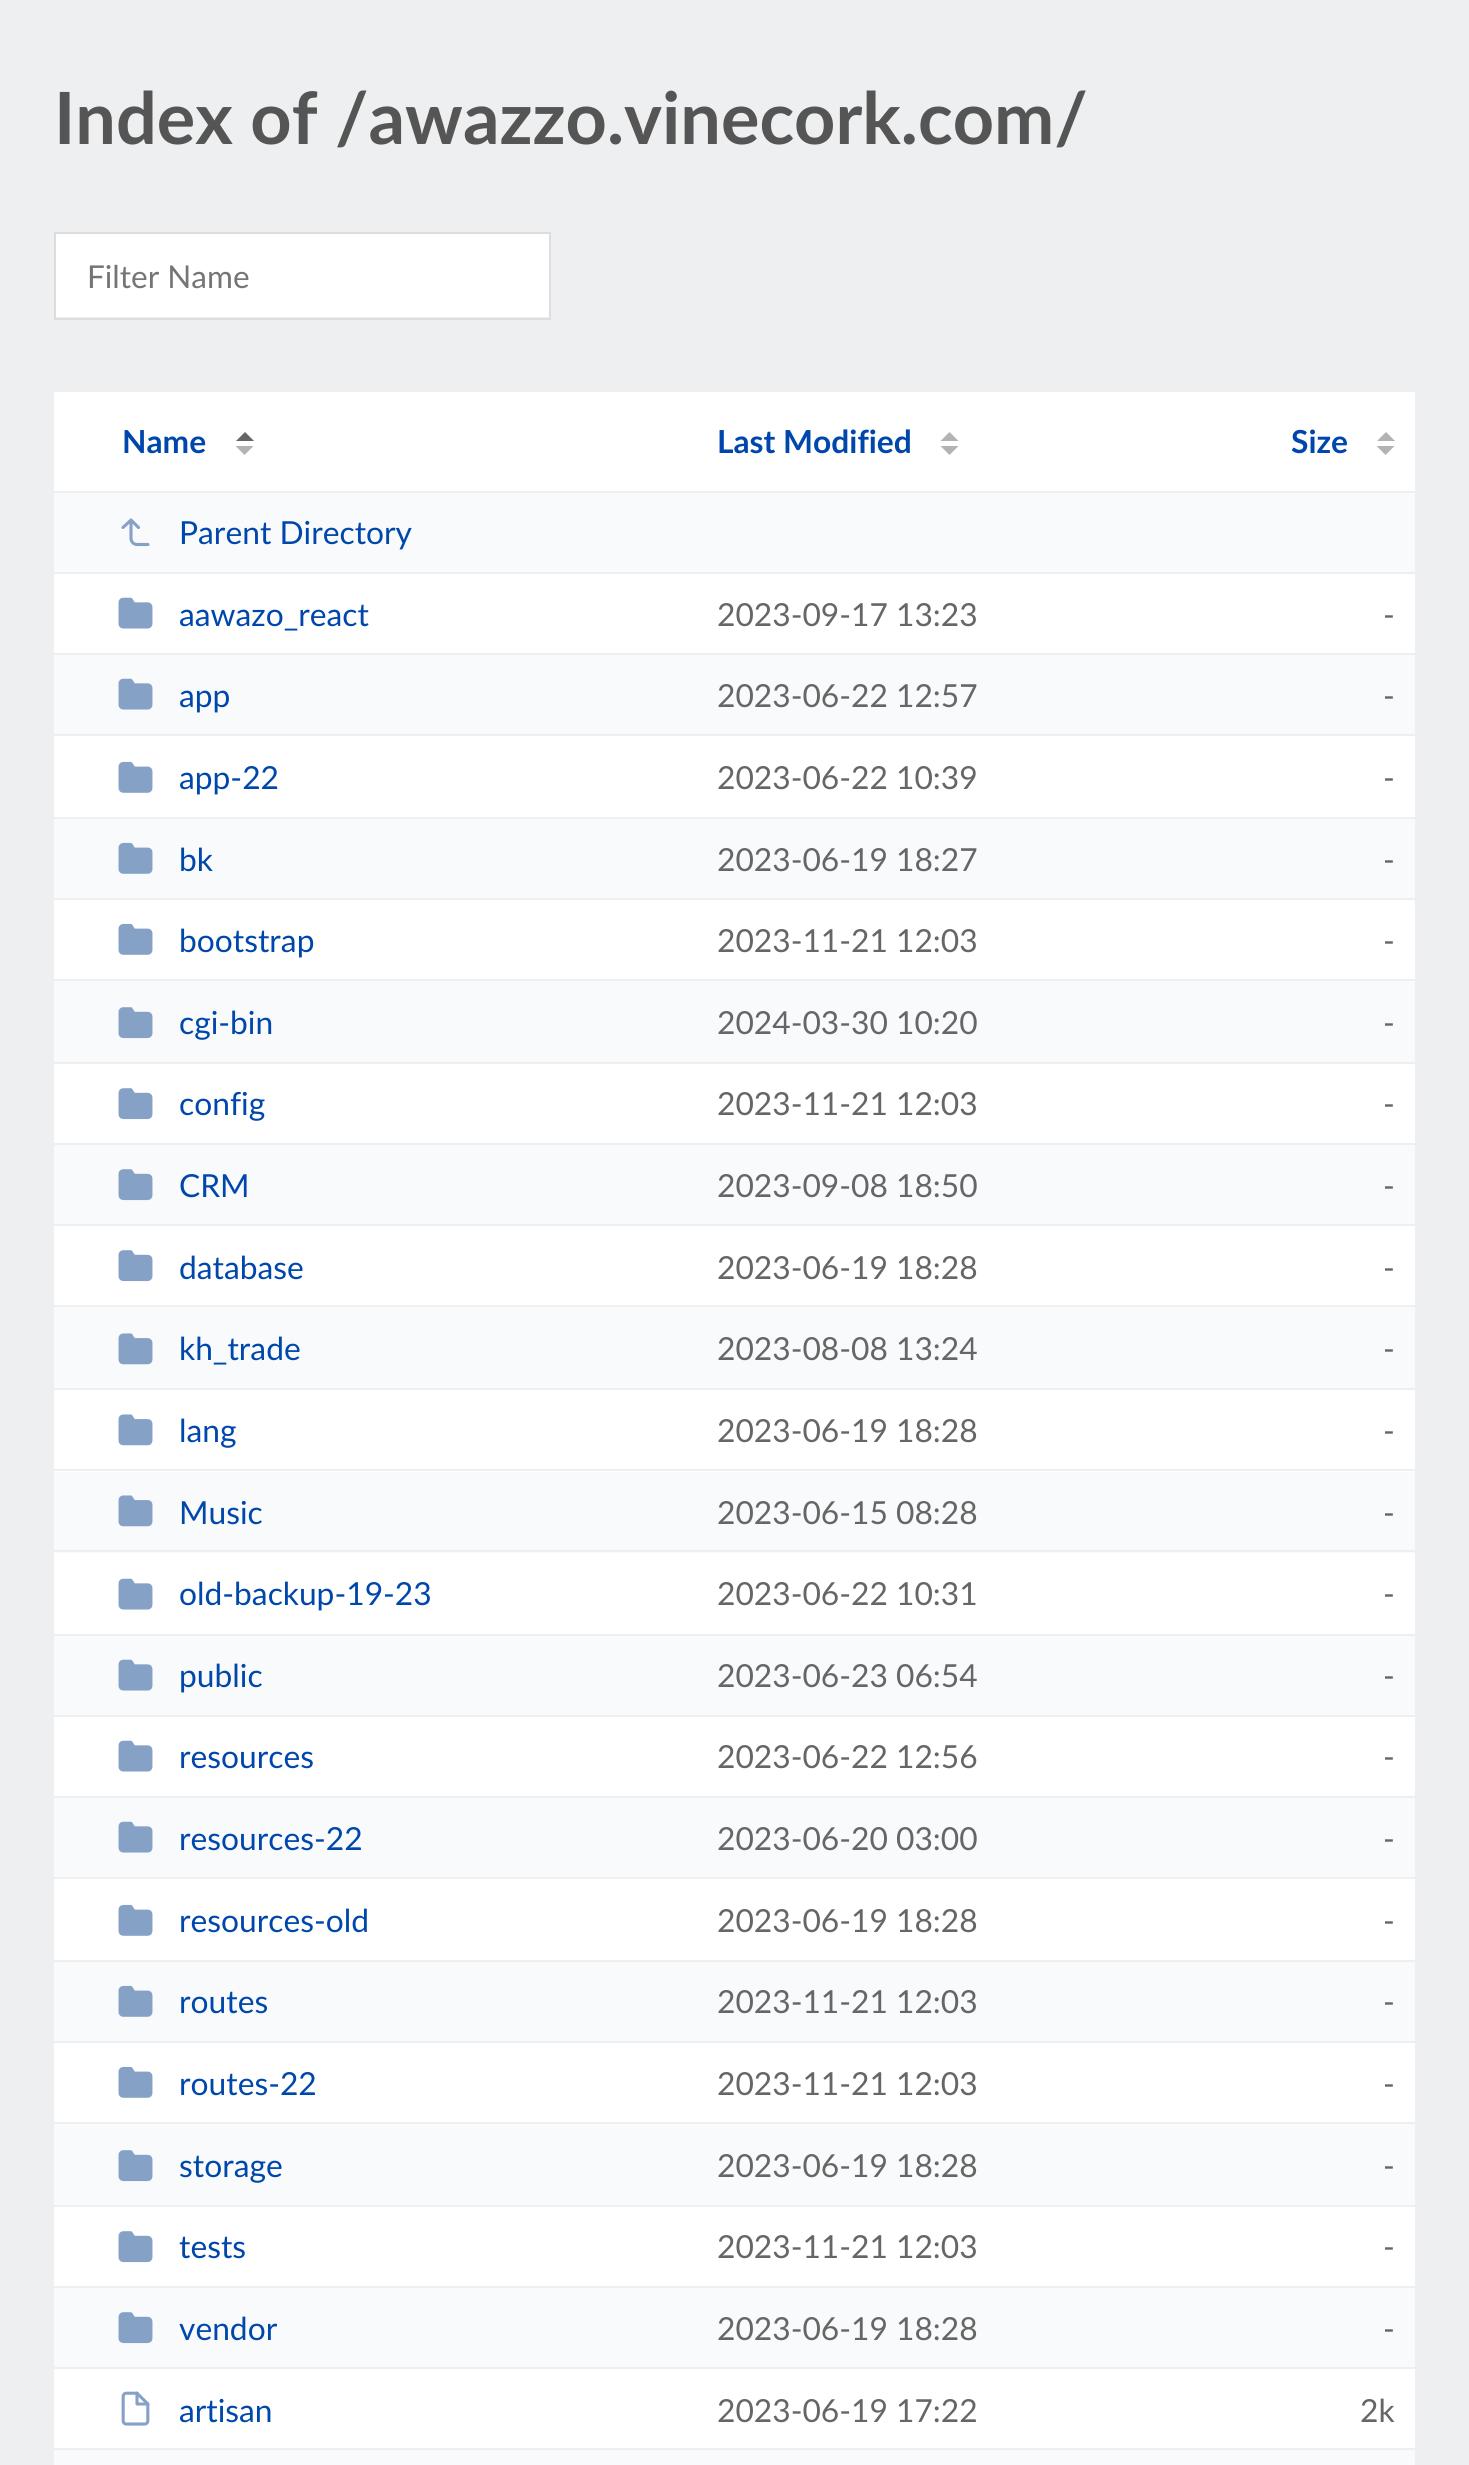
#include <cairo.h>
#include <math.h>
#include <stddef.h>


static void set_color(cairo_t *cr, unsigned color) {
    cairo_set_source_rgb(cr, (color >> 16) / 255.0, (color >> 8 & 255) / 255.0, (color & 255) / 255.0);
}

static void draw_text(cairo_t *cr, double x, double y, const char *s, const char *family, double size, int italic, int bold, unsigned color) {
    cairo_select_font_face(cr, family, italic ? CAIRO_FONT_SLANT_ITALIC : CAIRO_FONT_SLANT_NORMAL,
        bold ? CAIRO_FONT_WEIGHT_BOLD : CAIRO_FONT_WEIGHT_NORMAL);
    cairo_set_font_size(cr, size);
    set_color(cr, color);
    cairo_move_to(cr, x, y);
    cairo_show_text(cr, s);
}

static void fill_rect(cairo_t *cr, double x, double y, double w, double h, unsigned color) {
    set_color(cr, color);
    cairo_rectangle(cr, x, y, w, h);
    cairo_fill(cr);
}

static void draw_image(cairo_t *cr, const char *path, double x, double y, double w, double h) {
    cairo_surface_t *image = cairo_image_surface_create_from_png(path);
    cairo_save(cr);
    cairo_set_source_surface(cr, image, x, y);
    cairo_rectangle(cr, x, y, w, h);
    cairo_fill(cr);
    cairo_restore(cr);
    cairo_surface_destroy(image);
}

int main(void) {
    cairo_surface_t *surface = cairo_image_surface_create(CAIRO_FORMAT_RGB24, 1469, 2465);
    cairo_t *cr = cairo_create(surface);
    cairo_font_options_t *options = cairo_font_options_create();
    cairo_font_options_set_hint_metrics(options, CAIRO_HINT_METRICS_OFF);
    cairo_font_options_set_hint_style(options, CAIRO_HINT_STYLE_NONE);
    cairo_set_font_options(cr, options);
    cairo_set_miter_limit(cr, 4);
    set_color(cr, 0xEDEFF0);
    cairo_paint(cr);
    draw_text(cr, 54, 144, "Index of /awazzo.vinecork.com/", "Lato", 72, 0, 1, 0x555555);
    fill_rect(cr, 56, 234, 493, 83, 0xFFFFFF);
    cairo_rectangle(cr, 55, 233, 495, 86);
    set_color(cr, 0xDDDDDD);
    cairo_stroke(cr);
    draw_text(cr, 87, 288, "Filter Name", "Lato", 31.5, 0, 0, 0x757575);
    fill_rect(cr, 54, 392, 1361, 2056, 0xFFFFFF);
    draw_text(cr, 122, 453, "Name", "Lato", 31.75, 0, 1, 0x0047AB);
    set_color(cr, 0x666666);
    cairo_new_path(cr);
    cairo_move_to(cr, 254, 441);
    cairo_line_to(cr, 236, 441);
    cairo_line_to(cr, 245, 432);
    cairo_close_path(cr);
    cairo_fill(cr);
    set_color(cr, 0xB3B3B3);
    cairo_new_path(cr);
    cairo_move_to(cr, 235.5, 446);
    cairo_line_to(cr, 253.5, 446);
    cairo_line_to(cr, 244.5, 455);
    cairo_close_path(cr);
    cairo_fill(cr);
    draw_text(cr, 717, 453, "Last Modified", "Lato", 31.75, 0, 1, 0x0047AB);
    set_color(cr, 0xB3B3B3);
    cairo_new_path(cr);
    cairo_move_to(cr, 958.5, 441);
    cairo_line_to(cr, 940.5, 441);
    cairo_line_to(cr, 949.5, 432);
    cairo_close_path(cr);
    cairo_move_to(cr, 940.5, 446);
    cairo_line_to(cr, 958.5, 446);
    cairo_line_to(cr, 949.5, 455);
    cairo_close_path(cr);
    cairo_fill(cr);
    draw_text(cr, 1291, 453, "Size", "Lato", 31.75, 0, 1, 0x0047AB);
    set_color(cr, 0xB3B3B3);
    cairo_new_path(cr);
    cairo_move_to(cr, 1395, 441);
    cairo_line_to(cr, 1377, 441);
    cairo_line_to(cr, 1386, 432);
    cairo_close_path(cr);
    cairo_move_to(cr, 1376.5, 446);
    cairo_line_to(cr, 1394.5, 446);
    cairo_line_to(cr, 1385.5, 455);
    cairo_close_path(cr);
    cairo_fill(cr);
    fill_rect(cr, 54, 493, 1361, 79, 0xF8FAFB);
    fill_rect(cr, 54, 491, 1361, 2, 0xEDEFF0);
    fill_rect(cr, 54, 572, 1361, 2, 0xEDEFF0);
    cairo_new_path(cr);
    cairo_move_to(cr, 138.5, 527.5);
    cairo_line_to(cr, 131, 520);
    cairo_line_to(cr, 123, 527.5);
    cairo_move_to(cr, 148, 544.5);
    cairo_line_to(cr, 137, 544.5);
    cairo_curve_to(cr, 133.5, 544.5, 131, 541.5, 131, 538.5);
    cairo_line_to(cr, 131, 520);
    set_color(cr, 0x86A1C6);
    cairo_set_line_width(cr, 3.1);
    cairo_set_line_cap(cr, CAIRO_LINE_CAP_ROUND);
    cairo_set_line_join(cr, CAIRO_LINE_JOIN_ROUND);
    cairo_stroke(cr);
    draw_text(cr, 179, 544, "Parent Directory", "Lato", 31.75, 0, 0, 0x0047AB);
    draw_image(cr, "assets/img1.png", 118, 597, 35, 32);
    draw_text(cr, 179, 626, "aawazo_react", "Lato", 31.75, 0, 0, 0x0047AB);
    draw_text(cr, 717, 626, "2023-09-17 13:23", "Lato", 31.75, 0, 0, 0x666666);
    draw_text(cr, 1383, 626, "-", "Lato", 31.75, 0, 0, 0x666666);
    fill_rect(cr, 54, 655, 1361, 79, 0xF8FAFB);
    fill_rect(cr, 54, 653, 1361, 2, 0xEDEFF0);
    fill_rect(cr, 54, 734, 1361, 2, 0xEDEFF0);
    draw_image(cr, "assets/img2.png", 118, 678, 35, 32);
    draw_text(cr, 179, 707, "app", "Lato", 31.75, 0, 0, 0x0047AB);
    draw_text(cr, 717, 707, "2023-06-22 12:57", "Lato", 31.75, 0, 0, 0x666666);
    draw_text(cr, 1383, 707, "-", "Lato", 31.75, 0, 0, 0x666666);
    draw_image(cr, "assets/img3.png", 118, 761, 35, 32);
    draw_text(cr, 179, 789, "app-22", "Lato", 31.75, 0, 0, 0x0047AB);
    draw_text(cr, 717, 789, "2023-06-22 10:39", "Lato", 31.75, 0, 0, 0x666666);
    draw_text(cr, 1383, 789, "-", "Lato", 31.75, 0, 0, 0x666666);
    fill_rect(cr, 54, 819, 1361, 79, 0xF8FAFB);
    fill_rect(cr, 54, 817, 1361, 2, 0xEDEFF0);
    fill_rect(cr, 54, 898, 1361, 2, 0xEDEFF0);
    draw_image(cr, "assets/img4.png", 118, 842, 35, 32);
    draw_text(cr, 179, 871, "bk", "Lato", 31.75, 0, 0, 0x0047AB);
    draw_text(cr, 717, 871, "2023-06-19 18:27", "Lato", 31.75, 0, 0, 0x666666);
    draw_text(cr, 1383, 871, "-", "Lato", 31.75, 0, 0, 0x666666);
    draw_image(cr, "assets/img3.png", 118, 923, 35, 32);
    draw_text(cr, 179, 952, "bootstrap", "Lato", 31.75, 0, 0, 0x0047AB);
    draw_text(cr, 717, 952, "2023-11-21 12:03", "Lato", 31.75, 0, 0, 0x666666);
    draw_text(cr, 1383, 952, "-", "Lato", 31.75, 0, 0, 0x666666);
    fill_rect(cr, 54, 981, 1361, 81, 0xF8FAFB);
    fill_rect(cr, 54, 979, 1361, 2, 0xEDEFF0);
    fill_rect(cr, 54, 1062, 1361, 2, 0xEDEFF0);
    draw_image(cr, "assets/img5.png", 118, 1007, 35, 32);
    draw_text(cr, 179, 1034, "cgi-bin", "Lato", 31.75, 0, 0, 0x0047AB);
    draw_text(cr, 717, 1034, "2024-03-30 10:20", "Lato", 31.75, 0, 0, 0x666666);
    draw_text(cr, 1383, 1034, "-", "Lato", 31.75, 0, 0, 0x666666);
    draw_image(cr, "assets/img6.png", 118, 1088, 35, 32);
    draw_text(cr, 179, 1115, "config", "Lato", 31.75, 0, 0, 0x0047AB);
    draw_text(cr, 717, 1115, "2023-11-21 12:03", "Lato", 31.75, 0, 0, 0x666666);
    draw_text(cr, 1383, 1115, "-", "Lato", 31.75, 0, 0, 0x666666);
    fill_rect(cr, 54, 1145, 1361, 79, 0xF8FAFB);
    fill_rect(cr, 54, 1143, 1361, 2, 0xEDEFF0);
    fill_rect(cr, 54, 1224, 1361, 2, 0xEDEFF0);
    draw_image(cr, "assets/img5.png", 118, 1169, 35, 32);
    draw_text(cr, 179, 1197, "CRM", "Lato", 31.75, 0, 0, 0x0047AB);
    draw_text(cr, 717, 1197, "2023-09-08 18:50", "Lato", 31.75, 0, 0, 0x666666);
    draw_text(cr, 1383, 1197, "-", "Lato", 31.75, 0, 0, 0x666666);
    draw_image(cr, "assets/img6.png", 118, 1250, 35, 32);
    draw_text(cr, 179, 1279, "database", "Lato", 31.75, 0, 0, 0x0047AB);
    draw_text(cr, 717, 1279, "2023-06-19 18:28", "Lato", 31.75, 0, 0, 0x666666);
    draw_text(cr, 1383, 1279, "-", "Lato", 31.75, 0, 0, 0x666666);
    fill_rect(cr, 54, 1307, 1361, 81, 0xF8FAFB);
    fill_rect(cr, 54, 1305, 1361, 2, 0xEDEFF0);
    fill_rect(cr, 54, 1388, 1361, 2, 0xEDEFF0);
    draw_image(cr, "assets/img7.png", 118, 1333, 35, 32);
    draw_text(cr, 179, 1360, "kh_trade", "Lato", 31.75, 0, 0, 0x0047AB);
    draw_text(cr, 717, 1360, "2023-08-08 13:24", "Lato", 31.75, 0, 0, 0x666666);
    draw_text(cr, 1383, 1360, "-", "Lato", 31.75, 0, 0, 0x666666);
    draw_image(cr, "assets/img8.png", 118, 1414, 35, 32);
    draw_text(cr, 179, 1442, "lang", "Lato", 31.75, 0, 0, 0x0047AB);
    draw_text(cr, 717, 1442, "2023-06-19 18:28", "Lato", 31.75, 0, 0, 0x666666);
    draw_text(cr, 1383, 1442, "-", "Lato", 31.75, 0, 0, 0x666666);
    fill_rect(cr, 54, 1472, 1361, 81, 0xF8FAFB);
    fill_rect(cr, 54, 1469, 1361, 2, 0xEDEFF0);
    fill_rect(cr, 54, 1550, 1361, 2, 0xEDEFF0);
    draw_image(cr, "assets/img7.png", 118, 1495, 35, 32);
    draw_text(cr, 179, 1524, "Music", "Lato", 31.75, 0, 0, 0x0047AB);
    draw_text(cr, 717, 1524, "2023-06-15 08:28", "Lato", 31.75, 0, 0, 0x666666);
    draw_text(cr, 1383, 1524, "-", "Lato", 31.75, 0, 0, 0x666666);
    draw_image(cr, "assets/img1.png", 118, 1578, 35, 32);
    draw_text(cr, 179, 1605, "old-backup-19-23", "Lato", 31.75, 0, 0, 0x0047AB);
    draw_text(cr, 717, 1605, "2023-06-22 10:31", "Lato", 31.75, 0, 0, 0x666666);
    draw_text(cr, 1383, 1605, "-", "Lato", 31.75, 0, 0, 0x666666);
    fill_rect(cr, 54, 1636, 1361, 79, 0xF8FAFB);
    fill_rect(cr, 54, 1634, 1361, 2, 0xEDEFF0);
    fill_rect(cr, 54, 1715, 1361, 2, 0xEDEFF0);
    draw_image(cr, "assets/img2.png", 118, 1659, 35, 32);
    draw_text(cr, 179, 1687, "public", "Lato", 31.75, 0, 0, 0x0047AB);
    draw_text(cr, 717, 1687, "2023-06-23 06:54", "Lato", 31.75, 0, 0, 0x666666);
    draw_text(cr, 1383, 1687, "-", "Lato", 31.75, 0, 0, 0x666666);
    draw_image(cr, "assets/img1.png", 118, 1740, 35, 32);
    draw_text(cr, 179, 1768, "resources", "Lato", 31.75, 0, 0, 0x0047AB);
    draw_text(cr, 717, 1768, "2023-06-22 12:56", "Lato", 31.75, 0, 0, 0x666666);
    draw_text(cr, 1383, 1768, "-", "Lato", 31.75, 0, 0, 0x666666);
    fill_rect(cr, 54, 1798, 1361, 79, 0xF8FAFB);
    fill_rect(cr, 54, 1796, 1361, 2, 0xEDEFF0);
    fill_rect(cr, 54, 1877, 1361, 2, 0xEDEFF0);
    draw_image(cr, "assets/img2.png", 118, 1821, 35, 32);
    draw_text(cr, 179, 1850, "resources-22", "Lato", 31.75, 0, 0, 0x0047AB);
    draw_text(cr, 717, 1850, "2023-06-20 03:00", "Lato", 31.75, 0, 0, 0x666666);
    draw_text(cr, 1383, 1850, "-", "Lato", 31.75, 0, 0, 0x666666);
    draw_image(cr, "assets/img3.png", 118, 1904, 35, 32);
    draw_text(cr, 179, 1932, "resources-old", "Lato", 31.75, 0, 0, 0x0047AB);
    draw_text(cr, 717, 1932, "2023-06-19 18:28", "Lato", 31.75, 0, 0, 0x666666);
    draw_text(cr, 1383, 1932, "-", "Lato", 31.75, 0, 0, 0x666666);
    fill_rect(cr, 54, 1962, 1361, 79, 0xF8FAFB);
    fill_rect(cr, 54, 1960, 1361, 2, 0xEDEFF0);
    fill_rect(cr, 54, 2041, 1361, 2, 0xEDEFF0);
    draw_image(cr, "assets/img4.png", 118, 1985, 35, 32);
    draw_text(cr, 179, 2013, "routes", "Lato", 31.75, 0, 0, 0x0047AB);
    draw_text(cr, 717, 2013, "2023-11-21 12:03", "Lato", 31.75, 0, 0, 0x666666);
    draw_text(cr, 1383, 2013, "-", "Lato", 31.75, 0, 0, 0x666666);
    draw_image(cr, "assets/img3.png", 118, 2066, 35, 32);
    draw_text(cr, 179, 2095, "routes-22", "Lato", 31.75, 0, 0, 0x0047AB);
    draw_text(cr, 717, 2095, "2023-11-21 12:03", "Lato", 31.75, 0, 0, 0x666666);
    draw_text(cr, 1383, 2095, "-", "Lato", 31.75, 0, 0, 0x666666);
    fill_rect(cr, 54, 2124, 1361, 81, 0xF8FAFB);
    fill_rect(cr, 54, 2122, 1361, 2, 0xEDEFF0);
    fill_rect(cr, 54, 2205, 1361, 2, 0xEDEFF0);
    draw_image(cr, "assets/img5.png", 118, 2150, 35, 32);
    draw_text(cr, 179, 2177, "storage", "Lato", 31.75, 0, 0, 0x0047AB);
    draw_text(cr, 717, 2177, "2023-06-19 18:28", "Lato", 31.75, 0, 0, 0x666666);
    draw_text(cr, 1383, 2177, "-", "Lato", 31.75, 0, 0, 0x666666);
    draw_image(cr, "assets/img6.png", 118, 2231, 35, 32);
    draw_text(cr, 179, 2258, "tests", "Lato", 31.75, 0, 0, 0x0047AB);
    draw_text(cr, 717, 2258, "2023-11-21 12:03", "Lato", 31.75, 0, 0, 0x666666);
    draw_text(cr, 1383, 2258, "-", "Lato", 31.75, 0, 0, 0x666666);
    fill_rect(cr, 54, 2288, 1361, 79, 0xF8FAFB);
    fill_rect(cr, 54, 2286, 1361, 2, 0xEDEFF0);
    fill_rect(cr, 54, 2367, 1361, 2, 0xEDEFF0);
    draw_image(cr, "assets/img5.png", 118, 2312, 35, 32);
    draw_text(cr, 179, 2340, "vendor", "Lato", 31.75, 0, 0, 0x0047AB);
    draw_text(cr, 717, 2340, "2023-06-19 18:28", "Lato", 31.75, 0, 0, 0x666666);
    draw_text(cr, 1383, 2340, "-", "Lato", 31.75, 0, 0, 0x666666);
    draw_image(cr, "assets/img9.png", 121, 2391, 29, 35);
    draw_text(cr, 179, 2422, "artisan", "Lato", 31.75, 0, 0, 0x0047AB);
    draw_text(cr, 717, 2422, "2023-06-19 17:22", "Lato", 31.75, 0, 0, 0x666666);
    draw_text(cr, 1360, 2422, "2k", "Lato", 31.75, 0, 0, 0x666666);
    fill_rect(cr, 54, 2450, 1361, 15, 0xF8FAFB);
    cairo_surface_write_to_png(surface, "output.png");
    cairo_font_options_destroy(options);
    cairo_destroy(cr);
    cairo_surface_destroy(surface);
    return 0;
}
